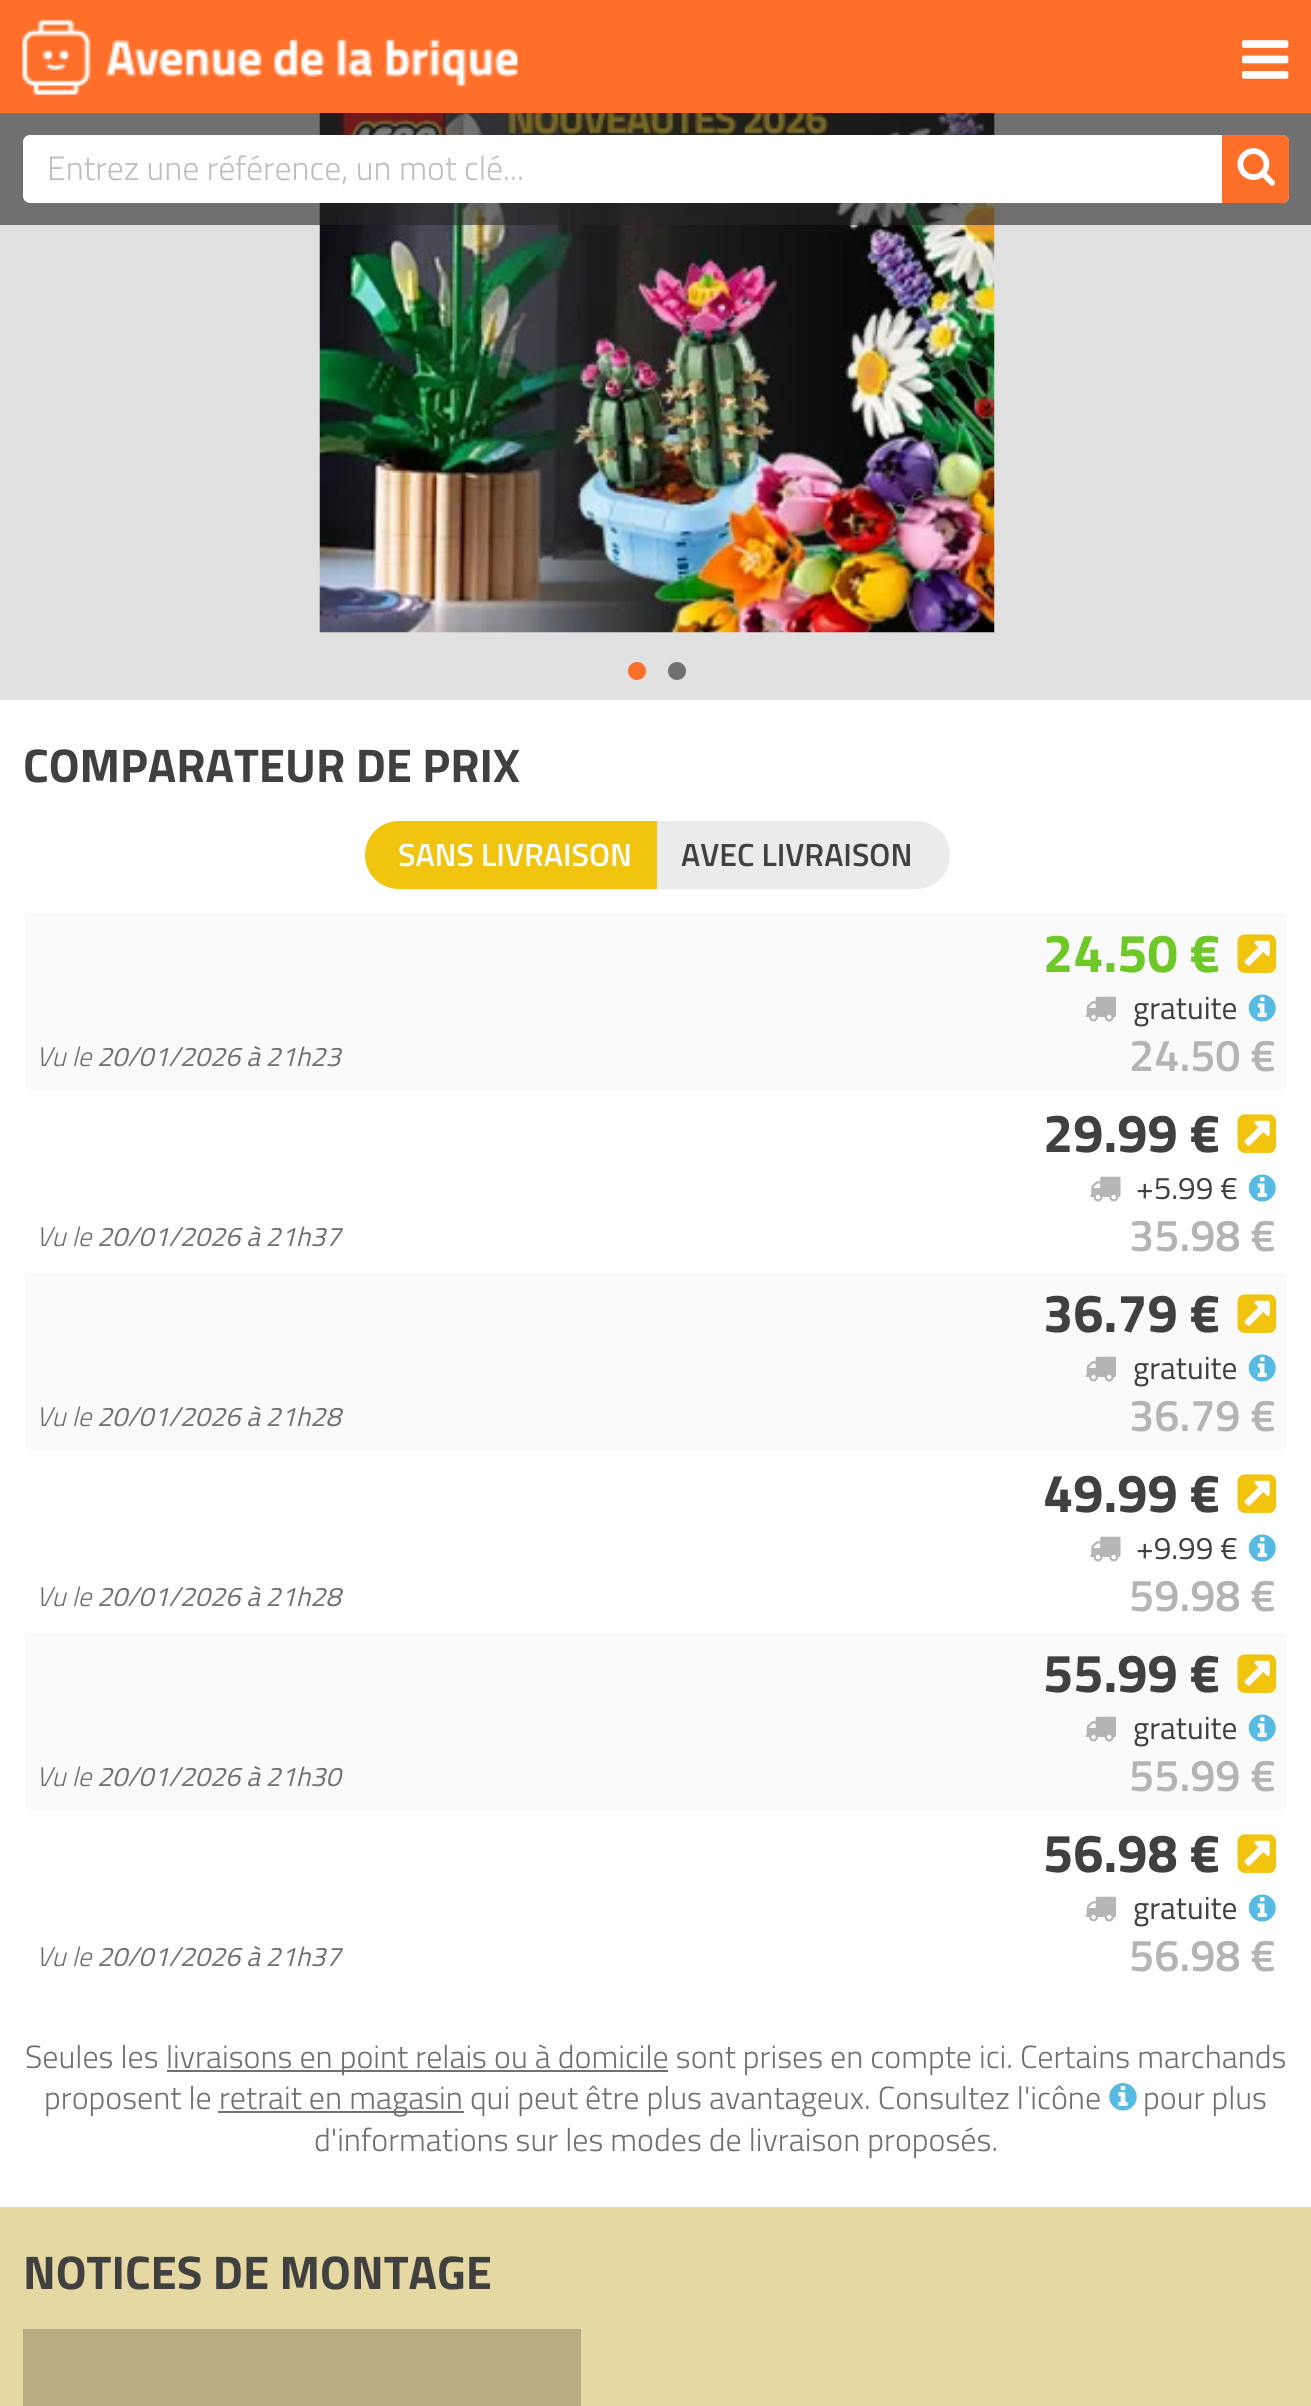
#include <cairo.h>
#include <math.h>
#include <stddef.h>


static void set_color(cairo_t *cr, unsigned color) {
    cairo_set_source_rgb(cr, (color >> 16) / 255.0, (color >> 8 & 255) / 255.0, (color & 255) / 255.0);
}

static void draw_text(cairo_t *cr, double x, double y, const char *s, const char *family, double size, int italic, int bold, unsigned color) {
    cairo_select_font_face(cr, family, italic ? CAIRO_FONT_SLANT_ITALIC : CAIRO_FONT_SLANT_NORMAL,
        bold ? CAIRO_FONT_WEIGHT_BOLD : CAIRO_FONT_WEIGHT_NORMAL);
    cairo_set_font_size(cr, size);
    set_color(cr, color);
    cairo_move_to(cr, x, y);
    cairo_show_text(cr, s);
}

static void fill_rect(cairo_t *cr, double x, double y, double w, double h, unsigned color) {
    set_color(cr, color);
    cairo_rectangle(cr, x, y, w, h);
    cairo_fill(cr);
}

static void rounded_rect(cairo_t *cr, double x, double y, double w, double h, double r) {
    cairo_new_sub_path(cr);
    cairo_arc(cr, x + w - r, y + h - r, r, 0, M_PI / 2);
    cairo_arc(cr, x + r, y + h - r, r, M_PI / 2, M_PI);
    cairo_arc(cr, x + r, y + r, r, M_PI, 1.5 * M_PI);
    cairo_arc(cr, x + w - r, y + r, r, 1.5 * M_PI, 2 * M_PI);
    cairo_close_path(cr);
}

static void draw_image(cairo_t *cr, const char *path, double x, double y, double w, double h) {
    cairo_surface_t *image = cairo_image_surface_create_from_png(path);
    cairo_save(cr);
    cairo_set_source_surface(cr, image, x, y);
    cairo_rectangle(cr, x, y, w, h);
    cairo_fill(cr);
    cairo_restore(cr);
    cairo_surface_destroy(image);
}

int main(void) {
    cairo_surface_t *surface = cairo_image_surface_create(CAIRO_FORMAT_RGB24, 1311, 2406);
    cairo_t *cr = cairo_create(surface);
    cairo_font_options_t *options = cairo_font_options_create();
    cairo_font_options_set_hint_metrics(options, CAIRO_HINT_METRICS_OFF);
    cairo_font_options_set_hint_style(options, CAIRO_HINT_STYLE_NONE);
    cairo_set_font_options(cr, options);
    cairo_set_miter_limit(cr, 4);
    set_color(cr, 0xE1E1E1);
    cairo_paint(cr);
    fill_rect(cr, 0, 0, 1311, 113, 0xFF6F2A);
    draw_image(cr, "assets/img1.png", 22, 19, 496, 77);
    draw_image(cr, "assets/img2.png", 1242, 40, 47, 39);
    draw_image(cr, "assets/img4.png", 319, 113, 676, 520);
    cairo_set_source_rgba(cr, 0.149, 0.149, 0.149, 0.6);
    cairo_rectangle(cr, 0, 113, 1311, 112);
    cairo_fill(cr);
    set_color(cr, 0xFFFFFF);
    rounded_rect(cr, 24, 136, 1264, 66, 6);
    cairo_fill_preserve(cr);
    cairo_stroke(cr);
    draw_text(cr, 47, 180, "Entrez une référence, un mot clé...", "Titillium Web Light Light", 33.75, 0, 0, 0xBFBFBF);
    set_color(cr, 0xFF6F2A);
    cairo_new_path(cr);
    cairo_move_to(cr, 1223, 136);
    cairo_line_to(cr, 1282, 136);
    cairo_curve_to(cr, 1285.5, 136, 1288, 138.5, 1288, 142);
    cairo_line_to(cr, 1288, 196);
    cairo_curve_to(cr, 1288, 199.5, 1285.5, 202, 1282, 202);
    cairo_line_to(cr, 1223, 202);
    cairo_close_path(cr);
    cairo_fill_preserve(cr);
    cairo_stroke(cr);
    draw_image(cr, "assets/img3.png", 1237, 148, 39, 38);
    cairo_arc(cr, 637, 671, 9, 0, 2 * M_PI);
    cairo_fill(cr);
    set_color(cr, 0x707070);
    cairo_arc(cr, 677, 671, 9, 0, 2 * M_PI);
    cairo_fill(cr);
    fill_rect(cr, 0, 700, 1311, 1507, 0xFFFFFF);
    draw_text(cr, 23, 782, "COMPARATEUR DE PRIX", "Titillium Web", 47.25, 0, 1, 0x404040);
    set_color(cr, 0xF1C40F);
    cairo_new_path(cr);
    cairo_move_to(cr, 399, 821);
    cairo_line_to(cr, 657, 821);
    cairo_line_to(cr, 657, 889);
    cairo_line_to(cr, 399, 889);
    cairo_curve_to(cr, 380, 889, 365, 874, 365, 855);
    cairo_curve_to(cr, 365, 836, 380, 821, 399, 821);
    cairo_close_path(cr);
    cairo_fill(cr);
    draw_text(cr, 398, 866, "SANS LIVRAISON", "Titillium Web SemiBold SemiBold", 32.05, 0, 0, 0xFFFFFF);
    set_color(cr, 0xEBEBEB);
    cairo_new_path(cr);
    cairo_move_to(cr, 657, 821);
    cairo_line_to(cr, 916, 821);
    cairo_curve_to(cr, 935, 821, 950, 836, 950, 855);
    cairo_curve_to(cr, 950, 874, 935, 889, 916, 889);
    cairo_line_to(cr, 657, 889);
    cairo_close_path(cr);
    cairo_fill(cr);
    draw_text(cr, 681, 866, "AVEC LIVRAISON", "Titillium Web SemiBold SemiBold", 32.05, 0, 0, 0x404040);
    set_color(cr, 0xFAFAFA);
    rounded_rect(cr, 24, 912, 1264, 178, 6);
    cairo_fill_preserve(cr);
    set_color(cr, 0xFFFFFF);
    cairo_stroke(cr);
    draw_text(cr, 1043, 972, "24.50 €", "Titillium Web", 54, 0, 1, 0x6EC828);
    draw_image(cr, "assets/img5.png", 1237, 934, 40, 39);
    draw_text(cr, 36, 1066, "Vu le", "Titillium Web Light Light", 27, 1, 0, 0x707070);
    draw_text(cr, 97, 1066, "20/01/2026 à 21h23", "Titillium Web", 27, 1, 0, 0x707070);
    draw_text(cr, 1129, 1071, "24.50 €", "Titillium Web SemiBold SemiBold", 45, 0, 0, 0xB4B4B4);
    draw_image(cr, "assets/img6.png", 1085, 996, 31, 26);
    draw_text(cr, 1133, 1019, "gratuite", "Titillium Web", 31.5, 0, 0, 0x404040);
    draw_image(cr, "assets/img7.png", 1248, 994, 28, 28);
    draw_text(cr, 1043, 1152, "29.99 €", "Titillium Web", 54, 0, 1, 0x404040);
    draw_image(cr, "assets/img8.png", 1237, 1114, 40, 39);
    draw_text(cr, 36, 1246, "Vu le", "Titillium Web Light Light", 27, 1, 0, 0x707070);
    draw_text(cr, 97, 1246, "20/01/2026 à 21h37", "Titillium Web", 27, 1, 0, 0x707070);
    draw_text(cr, 1129, 1251, "35.98 €", "Titillium Web SemiBold SemiBold", 45, 0, 0, 0xB4B4B4);
    draw_image(cr, "assets/img9.png", 1090, 1176, 31, 26);
    draw_text(cr, 1136, 1199, "+5.99 €", "Titillium Web", 31.5, 0, 0, 0x404040);
    draw_image(cr, "assets/img10.png", 1248, 1174, 28, 28);
    set_color(cr, 0xFAFAFA);
    rounded_rect(cr, 24, 1272, 1264, 178, 6);
    cairo_fill_preserve(cr);
    set_color(cr, 0xFFFFFF);
    cairo_stroke(cr);
    draw_text(cr, 1043, 1332, "36.79 €", "Titillium Web", 54, 0, 1, 0x404040);
    draw_image(cr, "assets/img5.png", 1237, 1294, 40, 39);
    draw_text(cr, 36, 1426, "Vu le", "Titillium Web Light Light", 27, 1, 0, 0x707070);
    draw_text(cr, 97, 1426, "20/01/2026 à 21h28", "Titillium Web", 27, 1, 0, 0x707070);
    draw_text(cr, 1129, 1431, "36.79 €", "Titillium Web SemiBold SemiBold", 45, 0, 0, 0xB4B4B4);
    draw_image(cr, "assets/img6.png", 1085, 1356, 31, 26);
    draw_text(cr, 1133, 1379, "gratuite", "Titillium Web", 31.5, 0, 0, 0x404040);
    draw_image(cr, "assets/img7.png", 1248, 1354, 28, 28);
    draw_text(cr, 1043, 1512, "49.99 €", "Titillium Web", 54, 0, 1, 0x404040);
    draw_image(cr, "assets/img8.png", 1237, 1474, 40, 39);
    draw_text(cr, 36, 1606, "Vu le", "Titillium Web Light Light", 27, 1, 0, 0x707070);
    draw_text(cr, 97, 1606, "20/01/2026 à 21h28", "Titillium Web", 27, 1, 0, 0x707070);
    draw_text(cr, 1129, 1611, "59.98 €", "Titillium Web SemiBold SemiBold", 45, 0, 0, 0xB4B4B4);
    draw_image(cr, "assets/img9.png", 1090, 1536, 31, 26);
    draw_text(cr, 1136, 1559, "+9.99 €", "Titillium Web", 31.5, 0, 0, 0x404040);
    draw_image(cr, "assets/img10.png", 1248, 1534, 28, 28);
    set_color(cr, 0xFAFAFA);
    rounded_rect(cr, 24, 1632, 1264, 178, 6);
    cairo_fill_preserve(cr);
    set_color(cr, 0xFFFFFF);
    cairo_stroke(cr);
    draw_text(cr, 1043, 1692, "55.99 €", "Titillium Web", 54, 0, 1, 0x404040);
    draw_image(cr, "assets/img5.png", 1237, 1654, 40, 39);
    draw_text(cr, 36, 1786, "Vu le", "Titillium Web Light Light", 27, 1, 0, 0x707070);
    draw_text(cr, 97, 1786, "20/01/2026 à 21h30", "Titillium Web", 27, 1, 0, 0x707070);
    draw_text(cr, 1129, 1791, "55.99 €", "Titillium Web SemiBold SemiBold", 45, 0, 0, 0xB4B4B4);
    draw_image(cr, "assets/img6.png", 1085, 1716, 31, 26);
    draw_text(cr, 1133, 1739, "gratuite", "Titillium Web", 31.5, 0, 0, 0x404040);
    draw_image(cr, "assets/img7.png", 1248, 1714, 28, 28);
    draw_text(cr, 1043, 1872, "56.98 €", "Titillium Web", 54, 0, 1, 0x404040);
    draw_image(cr, "assets/img8.png", 1237, 1834, 40, 39);
    draw_text(cr, 36, 1966, "Vu le", "Titillium Web Light Light", 27, 1, 0, 0x707070);
    draw_text(cr, 97, 1966, "20/01/2026 à 21h37", "Titillium Web", 27, 1, 0, 0x707070);
    draw_text(cr, 1129, 1971, "56.98 €", "Titillium Web SemiBold SemiBold", 45, 0, 0, 0xB4B4B4);
    draw_image(cr, "assets/img11.png", 1085, 1896, 31, 26);
    draw_text(cr, 1133, 1919, "gratuite", "Titillium Web", 31.5, 0, 0, 0x404040);
    draw_image(cr, "assets/img10.png", 1248, 1894, 28, 28);
    draw_text(cr, 25, 2068, "Seules les", "Titillium Web Light Light", 32.05, 0, 0, 0x707070);
    fill_rect(cr, 167, 2070, 501, 2, 0x707070);
    draw_text(cr, 166, 2068, "livraisons en point relais ou à domicile sont prises en compte ici. Certains marchands", "Titillium Web Light Light", 32.05, 0, 0, 0x707070);
    draw_text(cr, 44, 2109, "proposent le", "Titillium Web Light Light", 32.05, 0, 0, 0x707070);
    fill_rect(cr, 218, 2111, 246, 2, 0x707070);
    draw_text(cr, 219, 2109, "retrait en magasin qui peut être plus avantageux. Consultez l'icône", "Titillium Web Light Light", 32.05, 0, 0, 0x707070);
    draw_image(cr, "assets/img12.png", 1109, 2083, 28, 28);
    draw_text(cr, 1143, 2109, "pour plus", "Titillium Web Light Light", 32.05, 0, 0, 0x707070);
    draw_text(cr, 314, 2151, "d'informations sur les modes de livraison proposés.", "Titillium Web Light Light", 32.05, 0, 0, 0x707070);
    fill_rect(cr, 0, 2207, 1311, 199, 0xE5D8A2);
    draw_text(cr, 23, 2289, "NOTICES DE MONTAGE", "Titillium Web", 47.25, 0, 1, 0x404040);
    fill_rect(cr, 23, 2329, 558, 77, 0xB7AD82);
    cairo_surface_write_to_png(surface, "output.png");
    cairo_font_options_destroy(options);
    cairo_destroy(cr);
    cairo_surface_destroy(surface);
    return 0;
}
